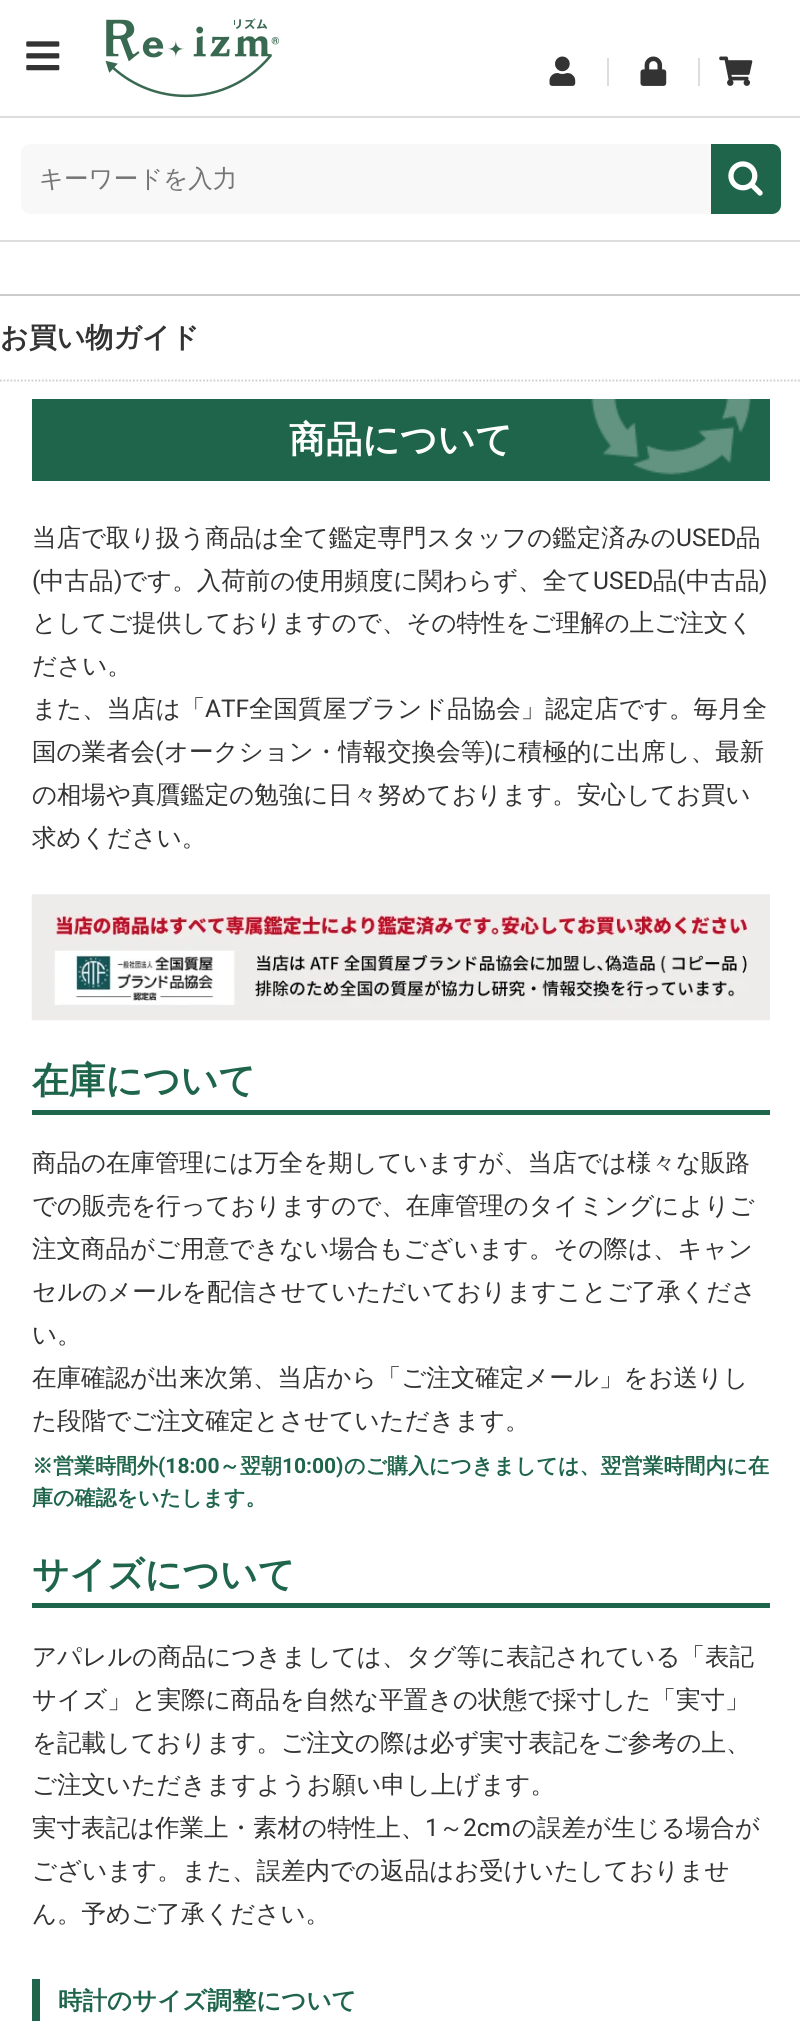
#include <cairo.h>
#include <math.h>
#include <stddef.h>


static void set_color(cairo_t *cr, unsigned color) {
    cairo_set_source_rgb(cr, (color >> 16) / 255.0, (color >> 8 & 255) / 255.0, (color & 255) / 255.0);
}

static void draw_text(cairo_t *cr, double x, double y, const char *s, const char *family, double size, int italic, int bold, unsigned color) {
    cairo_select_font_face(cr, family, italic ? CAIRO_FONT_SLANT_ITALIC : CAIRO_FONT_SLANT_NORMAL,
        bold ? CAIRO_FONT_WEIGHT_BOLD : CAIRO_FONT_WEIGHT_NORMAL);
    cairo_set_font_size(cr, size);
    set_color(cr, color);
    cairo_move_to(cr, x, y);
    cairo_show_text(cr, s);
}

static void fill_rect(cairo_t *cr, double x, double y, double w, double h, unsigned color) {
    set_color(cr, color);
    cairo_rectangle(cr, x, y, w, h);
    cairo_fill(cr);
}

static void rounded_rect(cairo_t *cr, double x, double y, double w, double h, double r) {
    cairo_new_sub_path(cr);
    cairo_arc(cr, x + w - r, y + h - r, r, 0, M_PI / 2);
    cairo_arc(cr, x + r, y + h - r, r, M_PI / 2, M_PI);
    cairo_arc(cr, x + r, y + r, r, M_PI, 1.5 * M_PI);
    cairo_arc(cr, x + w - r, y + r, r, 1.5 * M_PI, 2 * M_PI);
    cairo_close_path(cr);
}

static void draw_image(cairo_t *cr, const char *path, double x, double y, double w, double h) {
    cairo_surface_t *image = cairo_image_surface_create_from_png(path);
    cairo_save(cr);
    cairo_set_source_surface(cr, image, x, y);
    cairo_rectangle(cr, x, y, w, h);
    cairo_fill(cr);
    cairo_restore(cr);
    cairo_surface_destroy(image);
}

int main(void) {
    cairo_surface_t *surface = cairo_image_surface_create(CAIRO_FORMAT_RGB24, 800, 2031);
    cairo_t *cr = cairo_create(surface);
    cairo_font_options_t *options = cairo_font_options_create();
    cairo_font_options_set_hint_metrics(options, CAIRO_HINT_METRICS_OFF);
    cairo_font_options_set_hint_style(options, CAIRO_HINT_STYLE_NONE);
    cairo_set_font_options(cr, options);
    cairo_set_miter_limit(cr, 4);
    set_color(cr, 0xFFFFFF);
    cairo_paint(cr);
    draw_image(cr, "assets/img1.png", 105, 18, 174, 80);
    fill_rect(cr, 607, 58, 2, 28, 0xDDDDDD);
    draw_image(cr, "assets/img2.png", 549, 56, 27, 30);
    fill_rect(cr, 698, 58, 2, 28, 0xDDDDDD);
    draw_image(cr, "assets/img3.png", 640, 56, 27, 30);
    draw_image(cr, "assets/img4.png", 719, 56, 34, 30);
    fill_rect(cr, 0, 116, 800, 2, 0xDDDDDD);
    fill_rect(cr, 0, 240, 800, 2, 0xDDDDDD);
    draw_image(cr, "assets/img5.png", 26, 41, 34, 30);
    set_color(cr, 0xF8F8F8);
    rounded_rect(cr, 21, 144, 760, 70, 9);
    cairo_fill(cr);
    draw_text(cr, 39, 187, "キーワードを入力", "WenQuanYi Zen Hei Medium", 24.5, 0, 0, 0x757575);
    set_color(cr, 0x1F654C);
    cairo_new_path(cr);
    cairo_move_to(cr, 711, 144);
    cairo_line_to(cr, 772, 144);
    cairo_curve_to(cr, 777, 144, 781, 148, 781, 153);
    cairo_line_to(cr, 781, 205);
    cairo_curve_to(cr, 781, 210, 777, 214, 772, 214);
    cairo_line_to(cr, 711, 214);
    cairo_close_path(cr);
    cairo_fill(cr);
    draw_image(cr, "assets/img6.png", 728, 161, 35, 35);
    fill_rect(cr, 0, 294, 800, 2, 0xCCCCCC);
    cairo_new_path(cr);
    cairo_move_to(cr, 0, 380.5);
    cairo_line_to(cr, 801.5, 380.5);
    cairo_set_line_width(cr, 1.8);
    cairo_set_dash(cr, (double[]){1.75, 1.75}, 2, 0);
    cairo_stroke(cr);
    draw_text(cr, 0, 347, "お買い物ガイド", "WenQuanYi Zen Hei", 28, 0, 1, 0x333333);
    fill_rect(cr, 32, 399, 738, 82, 0x1F654C);
    draw_image(cr, "assets/img7.png", 591, 399, 160, 76);
    draw_text(cr, 289, 452, "商品について", "WenQuanYi Zen Hei", 36.75, 0, 1, 0xFFFFFF);
    draw_text(cr, 32, 546, "当店で取り扱う商品は全て鑑定専門スタッフの鑑定済みの", "WenQuanYi Zen Hei Medium", 24.5, 0, 0, 0x333333);
    draw_text(cr, 676, 546, "USED", "Roboto", 24.5, 0, 0, 0x333333);
    draw_text(cr, 736, 546, "品", "WenQuanYi Zen Hei Medium", 24.5, 0, 0, 0x333333);
    draw_text(cr, 32, 589, "(", "Roboto", 24.5, 0, 0, 0x333333);
    draw_text(cr, 40, 589, "中古品", "WenQuanYi Zen Hei Medium", 24.5, 0, 0, 0x333333);
    draw_text(cr, 114, 589, ")", "Roboto", 24.5, 0, 0, 0x333333);
    draw_text(cr, 122, 589, "です。入荷前の使用頻度に関わらず、全て", "WenQuanYi Zen Hei Medium", 24.5, 0, 0, 0x333333);
    draw_text(cr, 593, 589, "USED", "Roboto", 24.5, 0, 0, 0x333333);
    draw_text(cr, 653, 589, "品", "WenQuanYi Zen Hei Medium", 24.5, 0, 0, 0x333333);
    draw_text(cr, 677, 589, "(", "Roboto", 24.5, 0, 0, 0x333333);
    draw_text(cr, 686, 589, "中古品", "WenQuanYi Zen Hei Medium", 24.5, 0, 0, 0x333333);
    draw_text(cr, 759, 589, ")", "Roboto", 24.5, 0, 0, 0x333333);
    draw_text(cr, 32, 631, "としてご提供しておりますので、その特性をご理解の上ご注文く", "WenQuanYi Zen Hei Medium", 24.5, 0, 0, 0x333333);
    draw_text(cr, 32, 674, "ださい。", "WenQuanYi Zen Hei Medium", 24.5, 0, 0, 0x333333);
    draw_text(cr, 32, 717, "また、当店は「", "WenQuanYi Zen Hei Medium", 24.5, 0, 0, 0x333333);
    draw_text(cr, 205, 717, "ATF", "Roboto", 24.5, 0, 0, 0x333333);
    draw_text(cr, 249, 717, "全国質屋ブランド品協会」認定店です。毎月全", "WenQuanYi Zen Hei Medium", 24.5, 0, 0, 0x333333);
    draw_text(cr, 32, 760, "国の業者会", "WenQuanYi Zen Hei Medium", 24.5, 0, 0, 0x333333);
    draw_text(cr, 155, 760, "(", "Roboto", 24.5, 0, 0, 0x333333);
    draw_text(cr, 164, 760, "オークション・情報交換会等", "WenQuanYi Zen Hei Medium", 24.5, 0, 0, 0x333333);
    draw_text(cr, 485, 760, ")", "Roboto", 24.5, 0, 0, 0x333333);
    draw_text(cr, 493, 760, "に積極的に出席し、最新", "WenQuanYi Zen Hei Medium", 24.5, 0, 0, 0x333333);
    draw_text(cr, 32, 803, "の相場や真贋鑑定の勉強に日々努めております。安心してお買い", "WenQuanYi Zen Hei Medium", 24.5, 0, 0, 0x333333);
    draw_text(cr, 32, 846, "求めください。", "WenQuanYi Zen Hei Medium", 24.5, 0, 0, 0x333333);
    draw_image(cr, "assets/img8.png", 31, 894, 739, 127);
    fill_rect(cr, 32, 1110, 738, 5, 0x1F654C);
    draw_text(cr, 32, 1093, "在庫について", "WenQuanYi Zen Hei", 36.75, 0, 1, 0x1F654C);
    draw_text(cr, 32, 1171, "商品の在庫管理には万全を期していますが、当店では様々な販路", "WenQuanYi Zen Hei Medium", 24.5, 0, 0, 0x333333);
    draw_text(cr, 32, 1214, "での販売を行っておりますので、在庫管理のタイミングによりご", "WenQuanYi Zen Hei Medium", 24.5, 0, 0, 0x333333);
    draw_text(cr, 32, 1257, "注文商品がご用意できない場合もございます。その際は、キャン", "WenQuanYi Zen Hei Medium", 24.5, 0, 0, 0x333333);
    draw_text(cr, 32, 1300, "セルのメールを配信させていただいておりますことご了承くださ", "WenQuanYi Zen Hei Medium", 24.5, 0, 0, 0x333333);
    draw_text(cr, 32, 1343, "い。", "WenQuanYi Zen Hei Medium", 24.5, 0, 0, 0x333333);
    draw_text(cr, 32, 1386, "在庫確認が出来次第、当店から「ご注文確定メール」をお送りし", "WenQuanYi Zen Hei Medium", 24.5, 0, 0, 0x333333);
    draw_text(cr, 32, 1429, "た段階でご注文確定とさせていただきます。", "WenQuanYi Zen Hei Medium", 24.5, 0, 0, 0x333333);
    draw_text(cr, 32, 1473, "※営業時間外", "WenQuanYi Zen Hei", 21, 0, 1, 0x1F654C);
    draw_text(cr, 158, 1473, "(18:00", "Roboto", 21, 0, 1, 0x1F654C);
    draw_text(cr, 219, 1473, "～翌朝", "WenQuanYi Zen Hei", 21, 0, 1, 0x1F654C);
    draw_text(cr, 282, 1473, "10:00)", "Roboto", 21, 0, 1, 0x1F654C);
    draw_text(cr, 344, 1473, "のご購入につきましては、翌営業時間内に在", "WenQuanYi Zen Hei", 21, 0, 1, 0x1F654C);
    draw_text(cr, 32, 1505, "庫の確認をいたします。", "WenQuanYi Zen Hei", 21, 0, 1, 0x1F654C);
    fill_rect(cr, 32, 1603, 738, 5, 0x1F654C);
    draw_text(cr, 32, 1587, "サイズについて", "WenQuanYi Zen Hei", 36.75, 0, 1, 0x1F654C);
    draw_text(cr, 32, 1665, "アパレルの商品につきましては、タグ等に表記されている「表記", "WenQuanYi Zen Hei Medium", 24.5, 0, 0, 0x333333);
    draw_text(cr, 32, 1708, "サイズ」と実際に商品を自然な平置きの状態で採寸した「実寸」", "WenQuanYi Zen Hei Medium", 24.5, 0, 0, 0x333333);
    draw_text(cr, 32, 1751, "を記載しております。ご注文の際は必ず実寸表記をご参考の上、", "WenQuanYi Zen Hei Medium", 24.5, 0, 0, 0x333333);
    draw_text(cr, 32, 1793, "ご注文いただきますようお願い申し上げます。", "WenQuanYi Zen Hei Medium", 24.5, 0, 0, 0x333333);
    draw_text(cr, 32, 1836, "実寸表記は作業上・素材の特性上、", "WenQuanYi Zen Hei Medium", 24.5, 0, 0, 0x333333);
    draw_text(cr, 425, 1836, "1", "Roboto", 24.5, 0, 0, 0x333333);
    draw_text(cr, 439, 1836, "～", "WenQuanYi Zen Hei Medium", 24.5, 0, 0, 0x333333);
    draw_text(cr, 463, 1836, "2cm", "Roboto", 24.5, 0, 0, 0x333333);
    draw_text(cr, 512, 1836, "の誤差が生じる場合が", "WenQuanYi Zen Hei Medium", 24.5, 0, 0, 0x333333);
    draw_text(cr, 32, 1879, "ございます。また、誤差内での返品はお受けいたしておりませ", "WenQuanYi Zen Hei Medium", 24.5, 0, 0, 0x333333);
    draw_text(cr, 32, 1922, "ん。予めご了承ください。", "WenQuanYi Zen Hei Medium", 24.5, 0, 0, 0x333333);
    fill_rect(cr, 32, 1979, 8, 42, 0x1F654C);
    draw_text(cr, 58, 2009, "時計のサイズ調整について", "WenQuanYi Zen Hei", 24.5, 0, 1, 0x1F654C);
    cairo_surface_write_to_png(surface, "output.png");
    cairo_font_options_destroy(options);
    cairo_destroy(cr);
    cairo_surface_destroy(surface);
    return 0;
}
